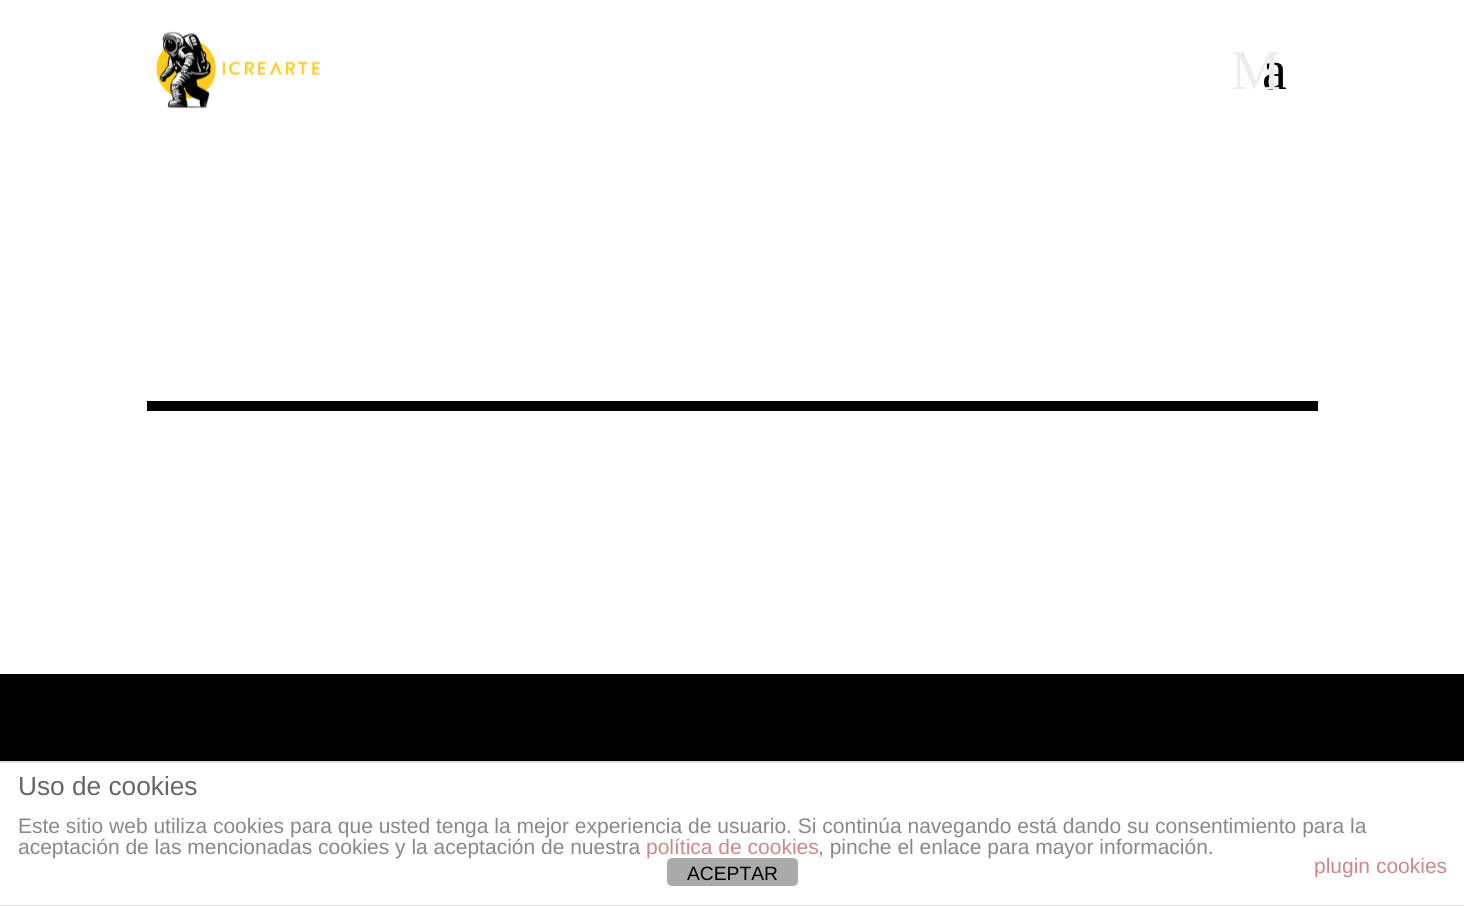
#include <cairo.h>
#include <math.h>
#include <stddef.h>


static void set_color(cairo_t *cr, unsigned color) {
    cairo_set_source_rgb(cr, (color >> 16) / 255.0, (color >> 8 & 255) / 255.0, (color & 255) / 255.0);
}

static void draw_text(cairo_t *cr, double x, double y, const char *s, const char *family, double size, int italic, int bold, unsigned color) {
    cairo_select_font_face(cr, family, italic ? CAIRO_FONT_SLANT_ITALIC : CAIRO_FONT_SLANT_NORMAL,
        bold ? CAIRO_FONT_WEIGHT_BOLD : CAIRO_FONT_WEIGHT_NORMAL);
    cairo_set_font_size(cr, size);
    set_color(cr, color);
    cairo_move_to(cr, x, y);
    cairo_show_text(cr, s);
}

static void fill_rect(cairo_t *cr, double x, double y, double w, double h, unsigned color) {
    set_color(cr, color);
    cairo_rectangle(cr, x, y, w, h);
    cairo_fill(cr);
}

static void rounded_rect(cairo_t *cr, double x, double y, double w, double h, double r) {
    cairo_new_sub_path(cr);
    cairo_arc(cr, x + w - r, y + h - r, r, 0, M_PI / 2);
    cairo_arc(cr, x + r, y + h - r, r, M_PI / 2, M_PI);
    cairo_arc(cr, x + r, y + r, r, M_PI, 1.5 * M_PI);
    cairo_arc(cr, x + w - r, y + r, r, 1.5 * M_PI, 2 * M_PI);
    cairo_close_path(cr);
}

static void draw_image(cairo_t *cr, const char *path, double x, double y, double w, double h) {
    cairo_surface_t *image = cairo_image_surface_create_from_png(path);
    cairo_save(cr);
    cairo_set_source_surface(cr, image, x, y);
    cairo_rectangle(cr, x, y, w, h);
    cairo_fill(cr);
    cairo_restore(cr);
    cairo_surface_destroy(image);
}

int main(void) {
    cairo_surface_t *surface = cairo_image_surface_create(CAIRO_FORMAT_RGB24, 1464, 906);
    cairo_t *cr = cairo_create(surface);
    cairo_font_options_t *options = cairo_font_options_create();
    cairo_font_options_set_hint_metrics(options, CAIRO_HINT_METRICS_OFF);
    cairo_font_options_set_hint_style(options, CAIRO_HINT_STYLE_NONE);
    cairo_set_font_options(cr, options);
    cairo_set_miter_limit(cr, 4);
    set_color(cr, 0x000000);
    cairo_paint(cr);
    fill_rect(cr, 0, 0, 1464, 674, 0xFFFFFF);
    fill_rect(cr, 147, 401, 1171, 10, 0x000000);
    draw_image(cr, "assets/img1.png", 156, 31, 165, 78);
    draw_text(cr, 1262, 89, "a", "Liberation Serif", 56, 0, 0, 0x000000);
    draw_text(cr, 1231, 89, "M", "Liberation Serif", 56, 0, 0, 0xECECEC);
    fill_rect(cr, 0, 763, 1464, 142, 0xFFFFFF);
    fill_rect(cr, 0, 761, 1464, 2, 0xDDDDDD);
    fill_rect(cr, 0, 905, 1464, 1, 0xDDDDDD);
    draw_text(cr, 18, 795, "Uso de cookies", "Liberation Sans", 26.25, 0, 0, 0x666666);
    draw_text(cr, 18, 833, "Este sitio web utiliza cookies para que usted tenga la mejor experiencia de usuario. Si continúa navegando está dando su consentimiento para la", "Liberation Sans", 21, 0, 0, 0x888888);
    draw_text(cr, 18, 854, "aceptación de las mencionadas cookies y la aceptación de nuestra", "Liberation Sans", 21, 0, 0, 0x888888);
    set_color(cr, 0xAAAAAA);
    rounded_rect(cr, 667, 858, 131, 28, 5);
    cairo_fill(cr);
    draw_text(cr, 646, 854, "política de cookies", "Liberation Sans", 21, 0, 0, 0xCC8888);
    draw_text(cr, 818, 854, ", pinche el enlace para mayor información.", "Liberation Sans", 21, 0, 0, 0x888888);
    draw_text(cr, 1314, 873, "plugin cookies", "Liberation Sans", 21, 0, 0, 0xCC8888);
    draw_text(cr, 687, 880, "ACEPTAR", "Liberation Sans", 19.25, 0, 0, 0x000000);
    cairo_surface_write_to_png(surface, "output.png");
    cairo_font_options_destroy(options);
    cairo_destroy(cr);
    cairo_surface_destroy(surface);
    return 0;
}
